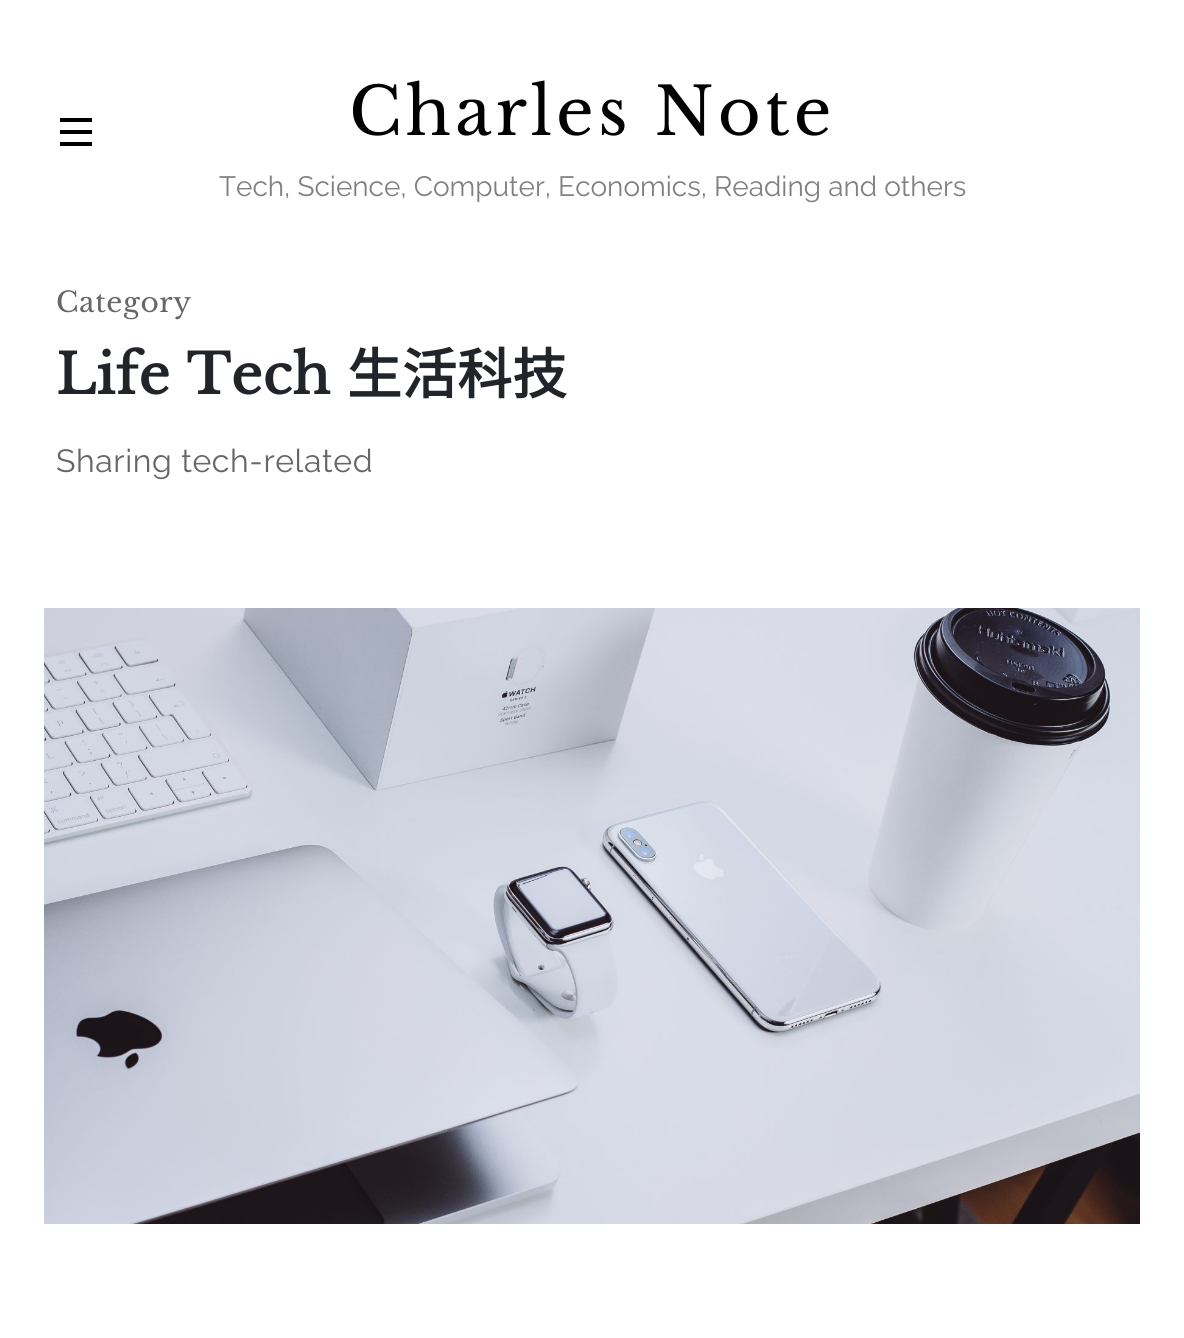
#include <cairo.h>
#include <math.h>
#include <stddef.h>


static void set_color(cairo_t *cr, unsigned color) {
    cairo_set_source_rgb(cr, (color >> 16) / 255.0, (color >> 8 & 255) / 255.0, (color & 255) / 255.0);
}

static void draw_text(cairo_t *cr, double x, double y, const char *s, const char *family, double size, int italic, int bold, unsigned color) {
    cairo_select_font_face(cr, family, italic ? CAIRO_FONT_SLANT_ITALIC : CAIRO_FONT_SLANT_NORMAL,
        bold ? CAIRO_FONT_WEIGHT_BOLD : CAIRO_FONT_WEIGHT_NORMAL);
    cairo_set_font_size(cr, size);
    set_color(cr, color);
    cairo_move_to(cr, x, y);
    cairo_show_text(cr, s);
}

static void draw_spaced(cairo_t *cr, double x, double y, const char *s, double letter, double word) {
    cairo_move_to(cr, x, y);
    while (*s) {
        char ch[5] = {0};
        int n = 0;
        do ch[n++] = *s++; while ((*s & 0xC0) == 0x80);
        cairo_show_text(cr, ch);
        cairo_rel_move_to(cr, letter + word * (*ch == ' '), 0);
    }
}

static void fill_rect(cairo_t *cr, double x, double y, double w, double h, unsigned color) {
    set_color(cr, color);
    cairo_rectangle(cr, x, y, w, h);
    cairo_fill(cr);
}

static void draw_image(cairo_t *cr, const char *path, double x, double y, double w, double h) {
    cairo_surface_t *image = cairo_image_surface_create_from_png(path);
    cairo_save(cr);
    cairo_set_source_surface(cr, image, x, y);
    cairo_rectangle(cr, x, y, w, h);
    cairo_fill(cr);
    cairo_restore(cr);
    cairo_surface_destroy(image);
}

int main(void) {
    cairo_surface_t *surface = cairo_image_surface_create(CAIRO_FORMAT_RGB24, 1184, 1338);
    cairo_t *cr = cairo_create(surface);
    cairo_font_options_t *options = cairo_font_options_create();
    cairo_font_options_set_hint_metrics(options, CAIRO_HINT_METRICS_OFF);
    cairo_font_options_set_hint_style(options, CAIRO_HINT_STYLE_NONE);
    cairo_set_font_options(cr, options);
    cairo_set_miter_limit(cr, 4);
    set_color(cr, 0xFFFFFF);
    cairo_paint(cr);
    fill_rect(cr, 60, 118, 32, 4, 0x000000);
    fill_rect(cr, 60, 130, 32, 4, 0x000000);
    fill_rect(cr, 60, 142, 32, 4, 0x000000);
    cairo_select_font_face(cr, "Libre Baskerville", CAIRO_FONT_SLANT_NORMAL, CAIRO_FONT_WEIGHT_NORMAL);
    cairo_set_font_size(cr, 65.75);
    draw_spaced(cr, 349, 135, "Charles Note", 4, 0);
    draw_text(cr, 219, 196, "Tech, Science, Computer, Economics, Reading and others", "Raleway Thin", 27.95, 0, 0, 0x808080);
    cairo_select_font_face(cr, "Libre Baskerville", CAIRO_FONT_SLANT_NORMAL, CAIRO_FONT_WEIGHT_NORMAL);
    cairo_set_font_size(cr, 28);
    set_color(cr, 0x666666);
    draw_spaced(cr, 56, 312, "Category", 0.6, 0);
    cairo_select_font_face(cr, "Libre Baskerville", CAIRO_FONT_SLANT_NORMAL, CAIRO_FONT_WEIGHT_BOLD);
    cairo_set_font_size(cr, 54.5);
    set_color(cr, 0x212529);
    draw_spaced(cr, 56, 394, "Life Tech", 0.6, 0);
    cairo_select_font_face(cr, "Noto Sans TC", CAIRO_FONT_SLANT_NORMAL, CAIRO_FONT_WEIGHT_BOLD);
    draw_spaced(cr, 347, 394, "生活科技", 0.6, 0);
    cairo_select_font_face(cr, "Raleway Thin", CAIRO_FONT_SLANT_NORMAL, CAIRO_FONT_WEIGHT_NORMAL);
    cairo_set_font_size(cr, 32);
    set_color(cr, 0x666666);
    draw_spaced(cr, 56, 472, "Sharing tech-related", 0.6, 0);
    draw_image(cr, "assets/img1.png", 44, 608, 1096, 616);
    cairo_surface_write_to_png(surface, "output.png");
    cairo_font_options_destroy(options);
    cairo_destroy(cr);
    cairo_surface_destroy(surface);
    return 0;
}
